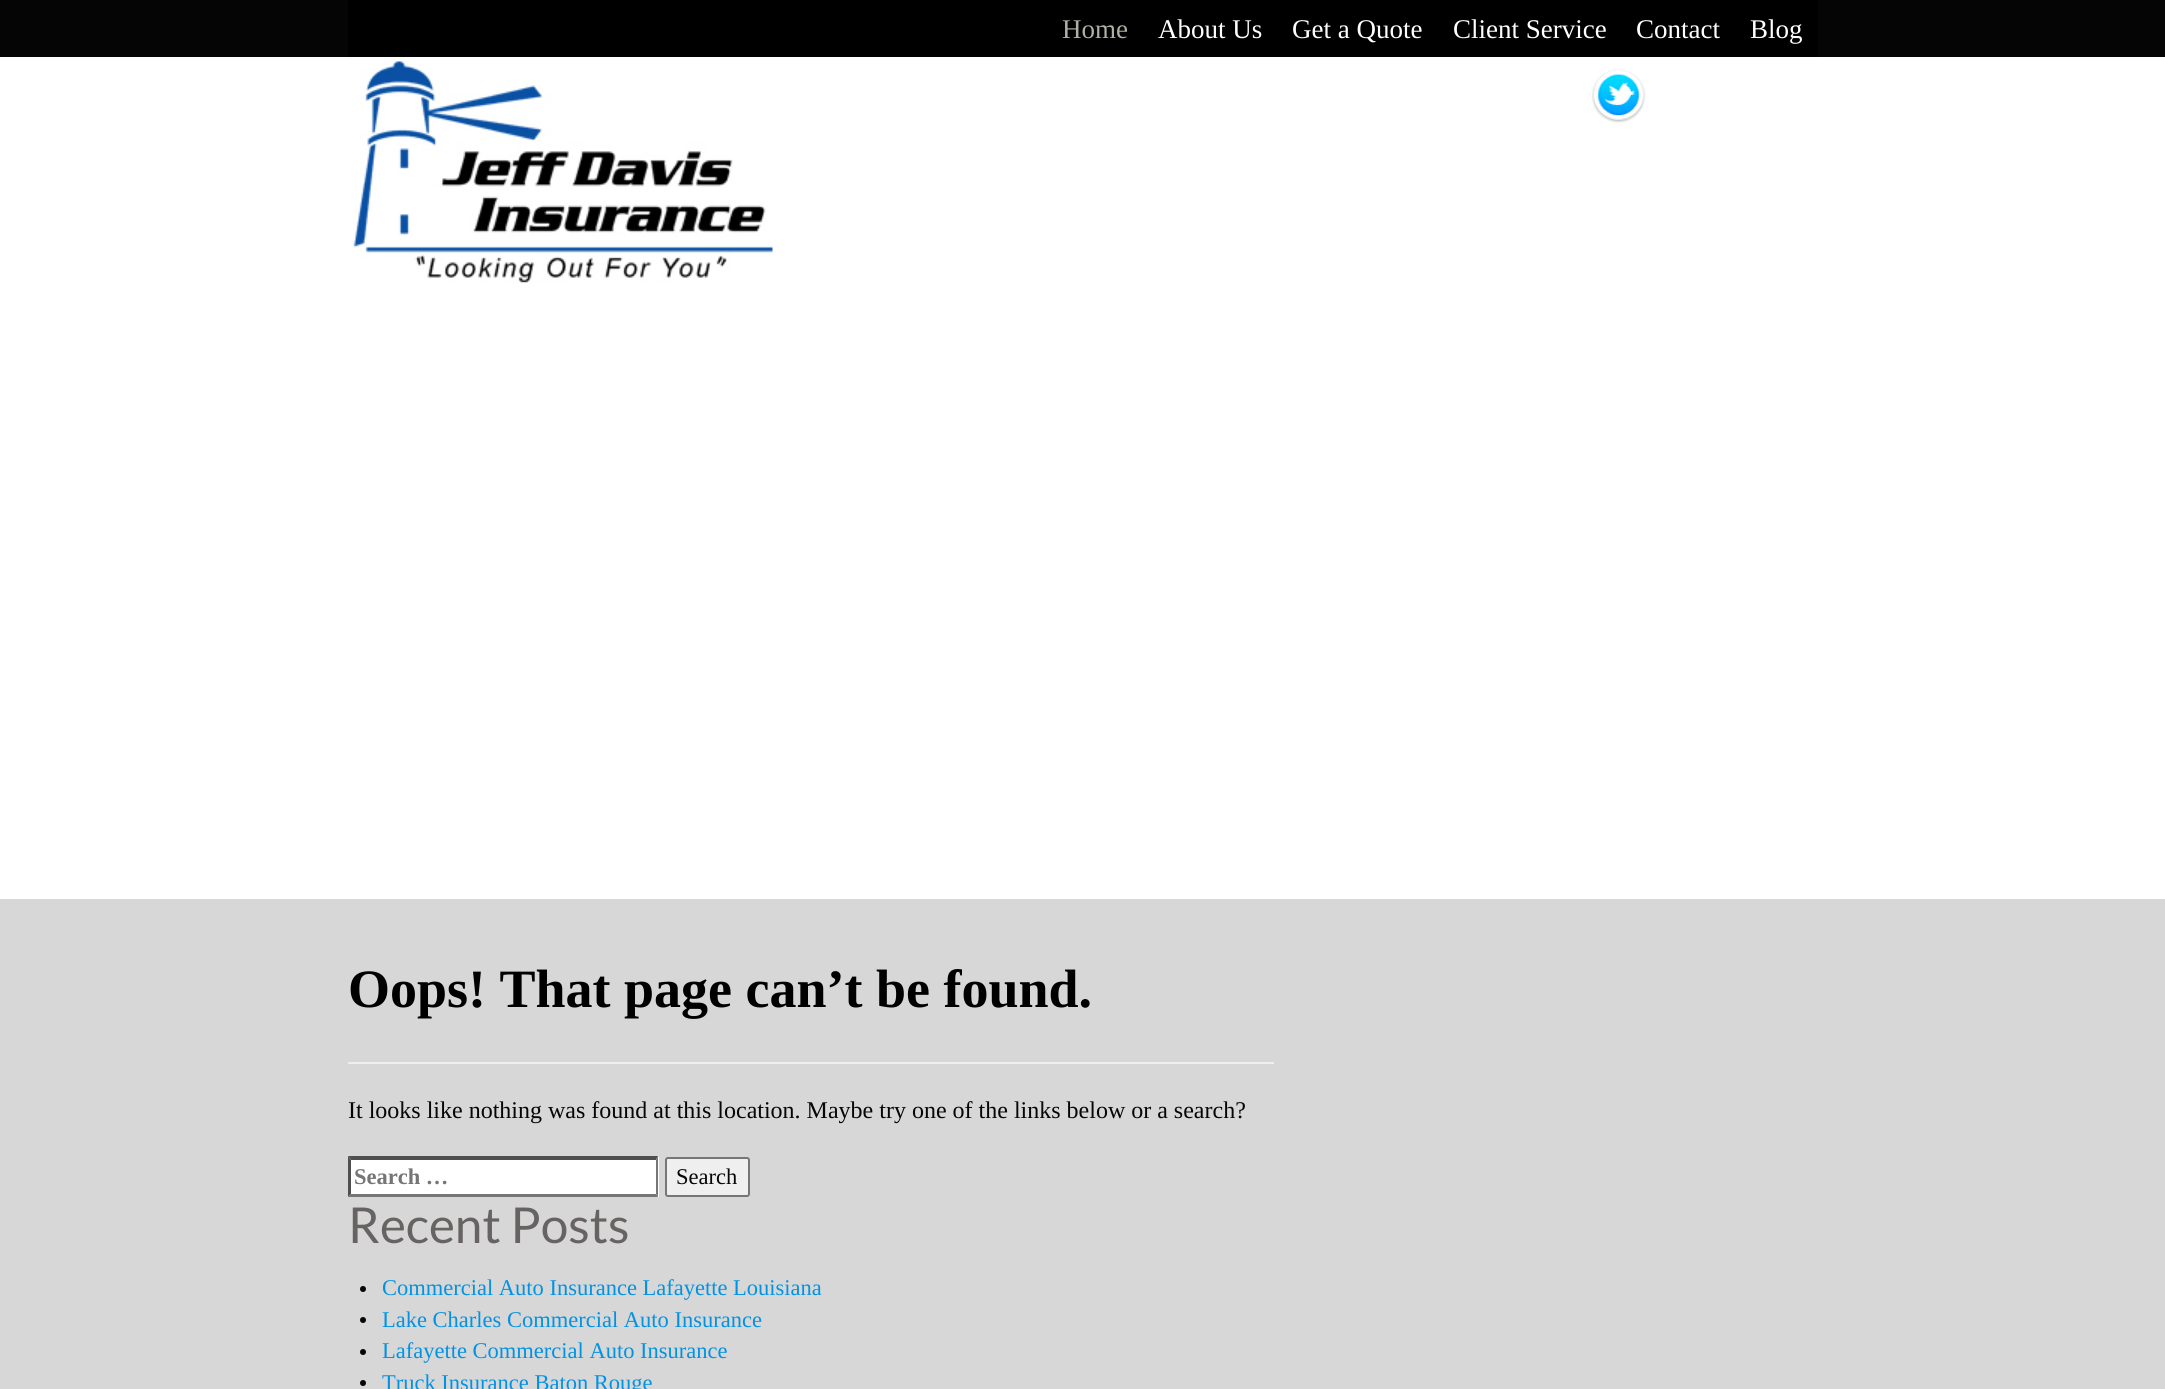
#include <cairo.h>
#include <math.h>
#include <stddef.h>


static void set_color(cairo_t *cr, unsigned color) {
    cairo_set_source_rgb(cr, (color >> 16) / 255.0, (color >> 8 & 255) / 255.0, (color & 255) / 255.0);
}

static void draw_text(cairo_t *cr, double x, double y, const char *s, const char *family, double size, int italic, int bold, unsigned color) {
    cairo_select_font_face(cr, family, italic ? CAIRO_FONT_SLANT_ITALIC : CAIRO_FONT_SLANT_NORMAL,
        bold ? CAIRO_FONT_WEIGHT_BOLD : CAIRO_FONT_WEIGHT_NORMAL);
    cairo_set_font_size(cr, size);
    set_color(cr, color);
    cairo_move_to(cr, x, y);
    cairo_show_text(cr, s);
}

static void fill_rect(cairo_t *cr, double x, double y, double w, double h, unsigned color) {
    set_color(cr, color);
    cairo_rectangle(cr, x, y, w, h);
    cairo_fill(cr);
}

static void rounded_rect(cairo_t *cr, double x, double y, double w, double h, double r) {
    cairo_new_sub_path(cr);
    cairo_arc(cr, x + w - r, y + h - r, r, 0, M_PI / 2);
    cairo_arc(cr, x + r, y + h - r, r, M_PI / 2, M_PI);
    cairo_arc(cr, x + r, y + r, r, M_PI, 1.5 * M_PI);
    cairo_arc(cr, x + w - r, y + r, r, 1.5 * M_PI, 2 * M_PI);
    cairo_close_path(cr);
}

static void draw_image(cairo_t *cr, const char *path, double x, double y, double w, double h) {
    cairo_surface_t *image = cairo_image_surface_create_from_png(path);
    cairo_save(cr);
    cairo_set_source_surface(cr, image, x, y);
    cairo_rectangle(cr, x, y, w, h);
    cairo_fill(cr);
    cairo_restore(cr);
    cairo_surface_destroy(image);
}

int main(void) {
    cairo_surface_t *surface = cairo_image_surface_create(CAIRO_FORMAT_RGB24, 2165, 1389);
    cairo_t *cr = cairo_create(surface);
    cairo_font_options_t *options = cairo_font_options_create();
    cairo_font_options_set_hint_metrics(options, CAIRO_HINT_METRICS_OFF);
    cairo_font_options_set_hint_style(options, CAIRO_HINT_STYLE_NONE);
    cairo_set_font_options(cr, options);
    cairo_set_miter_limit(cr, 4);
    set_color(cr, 0xD7D7D7);
    cairo_paint(cr);
    fill_rect(cr, 0, 57, 2165, 842, 0xFFFFFF);
    fill_rect(cr, 0, 0, 2165, 57, 0x050505);
    fill_rect(cr, 348, 0, 1470, 57, 0x000000);
    draw_text(cr, 1062, 38, "Home", "Liberation Serif", 27, 0, 0, 0xAFB0A1);
    draw_text(cr, 1158, 38, "About Us", "Liberation Serif", 27, 0, 0, 0xFFFFFF);
    draw_text(cr, 1292, 38, "Get a Quote", "Liberation Serif", 27, 0, 0, 0xFFFFFF);
    draw_text(cr, 1453, 38, "Client Service", "Liberation Serif", 27, 0, 0, 0xFFFFFF);
    draw_text(cr, 1636, 38, "Contact", "Liberation Serif", 27, 0, 0, 0xFFFFFF);
    draw_text(cr, 1750, 38, "Blog", "Liberation Serif", 27, 0, 0, 0xFFFFFF);
    draw_image(cr, "assets/img1.png", 353, 61, 420, 222);
    draw_image(cr, "assets/img2.png", 1591, 69, 55, 54);
    fill_rect(cr, 348, 1062, 926, 2, 0xEEEEEE);
    draw_text(cr, 348, 1007, "Oops! That page can’t be found.", "Liberation Serif", 54, 0, 1, 0x000000);
    draw_text(cr, 348, 1118, "It looks like nothing was found at this location. Maybe try one of the links below or a search?", "Liberation Serif", 24, 0, 0, 0x060606);
    fill_rect(cr, 348, 1157, 311, 40, 0xFFFFFF);
    set_color(cr, 0x4F4F4F);
    cairo_new_path(cr);
    cairo_move_to(cr, 348, 1156);
    cairo_line_to(cr, 658, 1156);
    cairo_line_to(cr, 656, 1160);
    cairo_line_to(cr, 351, 1160);
    cairo_close_path(cr);
    cairo_fill(cr);
    set_color(cr, 0x767676);
    cairo_new_path(cr);
    cairo_move_to(cr, 658, 1156);
    cairo_line_to(cr, 658, 1197);
    cairo_line_to(cr, 656, 1194);
    cairo_line_to(cr, 656, 1160);
    cairo_close_path(cr);
    cairo_fill(cr);
    cairo_new_path(cr);
    cairo_move_to(cr, 658, 1197);
    cairo_line_to(cr, 348, 1197);
    cairo_line_to(cr, 351, 1194);
    cairo_line_to(cr, 656, 1194);
    cairo_close_path(cr);
    cairo_fill(cr);
    set_color(cr, 0x4F4F4F);
    cairo_new_path(cr);
    cairo_move_to(cr, 348, 1197);
    cairo_line_to(cr, 348, 1156);
    cairo_line_to(cr, 351, 1160);
    cairo_line_to(cr, 351, 1194);
    cairo_close_path(cr);
    cairo_fill(cr);
    draw_text(cr, 354, 1184, "Search …", "Liberation Serif", 22.5, 0, 1, 0x757575);
    set_color(cr, 0xEFEFEF);
    rounded_rect(cr, 666, 1158, 83, 38, 2);
    cairo_fill_preserve(cr);
    set_color(cr, 0x767676);
    cairo_stroke(cr);
    draw_text(cr, 676, 1184, "Search", "Liberation Serif", 22.5, 0, 0, 0x060606);
    draw_text(cr, 348, 1243, "Recent Posts", "Lato", 49.5, 0, 0, 0x686363);
    set_color(cr, 0x060606);
    cairo_new_path(cr);
    cairo_arc(cr, 363, 1289, 3, 0, 2 * M_PI);
    cairo_fill(cr);
    draw_text(cr, 382, 1295, "Commercial Auto Insurance Lafayette Louisiana", "Liberation Serif", 22.5, 0, 0, 0x0093E3);
    set_color(cr, 0x060606);
    cairo_new_path(cr);
    cairo_arc(cr, 363, 1320, 3, 0, 2 * M_PI);
    cairo_fill(cr);
    draw_text(cr, 382, 1327, "Lake Charles Commercial Auto Insurance", "Liberation Serif", 22.5, 0, 0, 0x0093E3);
    set_color(cr, 0x060606);
    cairo_new_path(cr);
    cairo_arc(cr, 363, 1352, 3, 0, 2 * M_PI);
    cairo_fill(cr);
    draw_text(cr, 382, 1358, "Lafayette Commercial Auto Insurance", "Liberation Serif", 22.5, 0, 0, 0x0093E3);
    set_color(cr, 0x060606);
    cairo_new_path(cr);
    cairo_arc(cr, 363, 1383, 3, 0, 2 * M_PI);
    cairo_fill(cr);
    draw_text(cr, 382, 1390, "Truck Insurance Baton Rouge", "Liberation Serif", 22.5, 0, 0, 0x0093E3);
    cairo_surface_write_to_png(surface, "output.png");
    cairo_font_options_destroy(options);
    cairo_destroy(cr);
    cairo_surface_destroy(surface);
    return 0;
}
